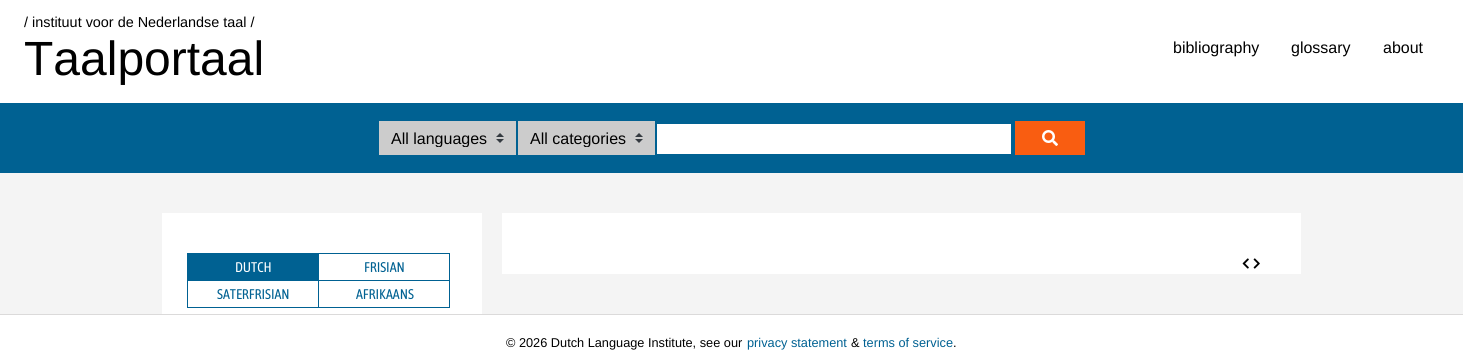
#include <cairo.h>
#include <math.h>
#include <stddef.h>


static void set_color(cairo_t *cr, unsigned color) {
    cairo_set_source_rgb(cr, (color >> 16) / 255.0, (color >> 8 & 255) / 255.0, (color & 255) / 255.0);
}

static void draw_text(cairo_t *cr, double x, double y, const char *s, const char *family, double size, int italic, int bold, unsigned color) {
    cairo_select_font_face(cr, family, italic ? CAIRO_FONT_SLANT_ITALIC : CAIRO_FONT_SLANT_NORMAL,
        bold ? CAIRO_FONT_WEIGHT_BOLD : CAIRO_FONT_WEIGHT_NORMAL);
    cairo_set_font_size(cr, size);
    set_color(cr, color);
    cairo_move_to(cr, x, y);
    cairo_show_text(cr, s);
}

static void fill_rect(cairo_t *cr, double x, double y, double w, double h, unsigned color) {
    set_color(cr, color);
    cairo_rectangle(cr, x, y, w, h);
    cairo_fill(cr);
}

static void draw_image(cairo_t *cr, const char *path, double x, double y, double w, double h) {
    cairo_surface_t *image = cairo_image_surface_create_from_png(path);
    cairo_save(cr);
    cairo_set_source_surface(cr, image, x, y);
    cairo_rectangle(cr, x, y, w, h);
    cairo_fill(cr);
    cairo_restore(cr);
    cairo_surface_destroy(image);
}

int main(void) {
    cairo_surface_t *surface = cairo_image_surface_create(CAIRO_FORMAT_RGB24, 1463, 361);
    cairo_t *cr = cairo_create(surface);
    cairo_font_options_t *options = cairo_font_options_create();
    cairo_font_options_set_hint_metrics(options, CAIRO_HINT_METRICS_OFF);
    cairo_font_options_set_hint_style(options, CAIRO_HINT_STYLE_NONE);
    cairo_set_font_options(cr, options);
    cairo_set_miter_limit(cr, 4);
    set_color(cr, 0xFFFFFF);
    cairo_paint(cr);
    draw_text(cr, 24, 27, "/ instituut voor de Nederlandse taal /", "Liberation Sans", 14.4, 0, 0, 0x000000);
    draw_text(cr, 24, 75, "Taalportaal", "Liberation Sans", 48, 0, 0, 0x000000);
    draw_text(cr, 1173, 53, "bibliography", "Liberation Sans", 16, 0, 0, 0x000000);
    draw_text(cr, 1291, 53, "glossary", "Liberation Sans", 16, 0, 0, 0x000000);
    draw_text(cr, 1383, 53, "about", "Liberation Sans", 16, 0, 0, 0x000000);
    fill_rect(cr, 0, 103, 1463, 70, 0x006192);
    fill_rect(cr, 379, 121, 137, 34, 0xCCCCCC);
    draw_image(cr, "assets/img1.png", 496, 133, 8, 10);
    cairo_save(cr);
    cairo_rectangle(cr, 391, 130, 97, 17);
    cairo_clip(cr);
    draw_text(cr, 391, 144, "All languages", "Liberation Sans", 16, 0, 0, 0x000000);
    cairo_restore(cr);
    fill_rect(cr, 518, 121, 137, 34, 0xCCCCCC);
    draw_image(cr, "assets/img1.png", 635, 133, 8, 10);
    cairo_save(cr);
    cairo_rectangle(cr, 530, 130, 97, 17);
    cairo_clip(cr);
    draw_text(cr, 530, 144, "All categories", "Liberation Sans", 16, 0, 0, 0x000000);
    cairo_restore(cr);
    fill_rect(cr, 657, 124, 354, 30, 0xFFFFFF);
    fill_rect(cr, 1015, 121, 70, 34, 0xF95D11);
    draw_image(cr, "assets/img2.png", 1042, 130, 16, 16);
    fill_rect(cr, 0, 173, 1463, 141, 0xF4F4F4);
    fill_rect(cr, 502, 213, 799, 61, 0xFFFFFF);
    draw_image(cr, "assets/img3.png", 1242, 258, 7, 11);
    draw_image(cr, "assets/img4.png", 1253, 258, 7, 11);
    fill_rect(cr, 162, 213, 320, 101, 0xFFFFFF);
    fill_rect(cr, 187, 253, 131, 27, 0x006192);
    draw_text(cr, 235, 272, "DUTCH", "Asap Condensed", 14, 0, 0, 0xFFFFFF);
    cairo_rectangle(cr, 318.5, 253.5, 131, 27);
    set_color(cr, 0x006192);
    cairo_set_line_width(cr, 1);
    cairo_stroke(cr);
    draw_text(cr, 364, 272, "FRISIAN", "Asap Condensed", 14, 0, 0, 0x006192);
    cairo_rectangle(cr, 187.5, 280.5, 131, 27);
    cairo_stroke(cr);
    draw_text(cr, 217, 299, "SATERFRISIAN", "Asap Condensed", 14, 0, 0, 0x006192);
    cairo_rectangle(cr, 318.5, 280.5, 131, 27);
    cairo_stroke(cr);
    draw_text(cr, 356, 299, "AFRIKAANS", "Asap Condensed", 14, 0, 0, 0x006192);
    fill_rect(cr, 0, 314, 1463, 1, 0xDBDADA);
    draw_text(cr, 506, 347, "© 2026 Dutch Language Institute, see our", "Liberation Sans", 12.75, 0, 0, 0x000000);
    draw_text(cr, 747, 347, "privacy statement", "Liberation Sans", 12.75, 0, 0, 0x006192);
    draw_text(cr, 851, 347, "&", "Liberation Sans", 12.75, 0, 0, 0x000000);
    draw_text(cr, 863, 347, "terms of service", "Liberation Sans", 12.75, 0, 0, 0x006192);
    draw_text(cr, 953, 347, ".", "Liberation Sans", 12.75, 0, 0, 0x000000);
    cairo_surface_write_to_png(surface, "output.png");
    cairo_font_options_destroy(options);
    cairo_destroy(cr);
    cairo_surface_destroy(surface);
    return 0;
}
